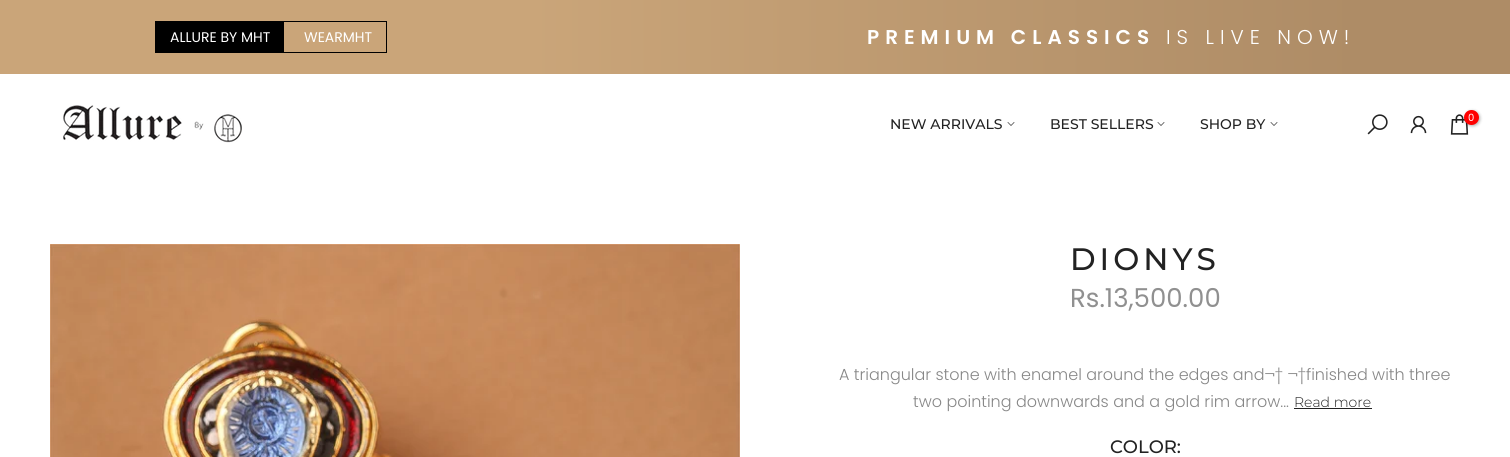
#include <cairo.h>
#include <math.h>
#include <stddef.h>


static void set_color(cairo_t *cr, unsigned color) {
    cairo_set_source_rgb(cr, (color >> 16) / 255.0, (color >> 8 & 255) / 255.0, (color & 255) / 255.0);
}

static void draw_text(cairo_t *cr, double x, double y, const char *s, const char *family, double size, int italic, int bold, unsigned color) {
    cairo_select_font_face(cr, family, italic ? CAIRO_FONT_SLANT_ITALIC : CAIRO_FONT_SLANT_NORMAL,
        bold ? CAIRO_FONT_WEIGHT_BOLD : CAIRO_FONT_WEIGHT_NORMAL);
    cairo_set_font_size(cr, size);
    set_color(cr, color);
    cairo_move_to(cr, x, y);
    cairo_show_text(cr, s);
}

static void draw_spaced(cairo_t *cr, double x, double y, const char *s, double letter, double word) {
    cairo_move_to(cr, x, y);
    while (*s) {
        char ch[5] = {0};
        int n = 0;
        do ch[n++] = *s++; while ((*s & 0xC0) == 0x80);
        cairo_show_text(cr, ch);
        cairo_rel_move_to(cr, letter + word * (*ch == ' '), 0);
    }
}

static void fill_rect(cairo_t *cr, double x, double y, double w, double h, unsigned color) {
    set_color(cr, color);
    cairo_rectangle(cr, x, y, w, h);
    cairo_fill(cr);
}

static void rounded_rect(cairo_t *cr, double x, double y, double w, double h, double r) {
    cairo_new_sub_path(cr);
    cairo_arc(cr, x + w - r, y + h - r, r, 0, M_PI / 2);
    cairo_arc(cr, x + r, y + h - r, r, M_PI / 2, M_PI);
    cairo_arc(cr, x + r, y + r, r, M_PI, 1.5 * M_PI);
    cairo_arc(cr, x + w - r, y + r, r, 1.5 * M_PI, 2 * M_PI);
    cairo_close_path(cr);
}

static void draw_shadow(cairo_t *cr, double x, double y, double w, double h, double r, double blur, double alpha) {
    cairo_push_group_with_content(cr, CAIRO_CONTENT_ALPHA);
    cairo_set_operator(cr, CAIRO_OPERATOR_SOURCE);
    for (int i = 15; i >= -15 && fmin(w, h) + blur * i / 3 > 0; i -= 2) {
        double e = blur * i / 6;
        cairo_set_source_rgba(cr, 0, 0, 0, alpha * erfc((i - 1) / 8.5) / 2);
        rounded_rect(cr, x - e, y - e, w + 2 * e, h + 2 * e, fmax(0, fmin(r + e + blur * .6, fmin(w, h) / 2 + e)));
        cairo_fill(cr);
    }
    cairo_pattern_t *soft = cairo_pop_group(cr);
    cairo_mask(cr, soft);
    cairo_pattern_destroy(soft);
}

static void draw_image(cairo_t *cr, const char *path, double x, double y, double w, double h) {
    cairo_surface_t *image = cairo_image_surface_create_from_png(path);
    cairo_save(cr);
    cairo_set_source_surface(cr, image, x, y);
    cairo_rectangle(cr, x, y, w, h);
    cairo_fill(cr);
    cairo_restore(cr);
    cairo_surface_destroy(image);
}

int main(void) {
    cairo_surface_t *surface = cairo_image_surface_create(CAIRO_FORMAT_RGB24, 1510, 457);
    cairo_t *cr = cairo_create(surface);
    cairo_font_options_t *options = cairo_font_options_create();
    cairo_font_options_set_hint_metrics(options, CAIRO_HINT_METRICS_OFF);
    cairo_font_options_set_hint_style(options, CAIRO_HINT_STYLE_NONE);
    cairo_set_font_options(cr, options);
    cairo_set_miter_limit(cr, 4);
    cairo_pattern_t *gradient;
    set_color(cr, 0xFFFFFF);
    cairo_paint(cr);
    gradient = cairo_pattern_create_linear(0, 37, 1510, 37);
    cairo_pattern_add_color_stop_rgba(gradient, 0.35, 0.792, 0.647, 0.475, 1);
    cairo_pattern_add_color_stop_rgba(gradient, 0.9, 0.682, 0.549, 0.4, 1);
    cairo_set_source(cr, gradient);
    cairo_pattern_destroy(gradient);
    cairo_rectangle(cr, 0, 0, 1510, 74);
    cairo_fill(cr);
    cairo_rectangle(cr, 155.5, 21.5, 231, 31);
    set_color(cr, 0x000000);
    cairo_set_line_width(cr, 1);
    cairo_stroke(cr);
    fill_rect(cr, 156, 22, 128, 30, 0x000000);
    draw_text(cr, 170, 42, "ALLURE BY MHT", "Poppins", 14, 0, 0, 0xFFFFFF);
    draw_text(cr, 304, 42, "WEARMHT", "Poppins", 14, 0, 0, 0xFFFFFF);
    cairo_select_font_face(cr, "Poppins SemiBold", CAIRO_FONT_SLANT_NORMAL, CAIRO_FONT_WEIGHT_NORMAL);
    cairo_set_font_size(cr, 20);
    draw_spaced(cr, 867, 44, "PREMIUM CLASSICS", 6, 0);
    cairo_select_font_face(cr, "Poppins Light", CAIRO_FONT_SLANT_NORMAL, CAIRO_FONT_WEIGHT_NORMAL);
    draw_spaced(cr, 1166, 44, "IS LIVE NOW!", 6, 0);
    draw_image(cr, "assets/img1.png", 63, 105, 179, 38);
    draw_image(cr, "assets/img2.png", 1367, 114, 21, 21);
    draw_image(cr, "assets/img3.png", 1410, 115, 17, 19);
    draw_image(cr, "assets/img4.png", 1450, 114, 19, 21);
    set_color(cr, 0x000000);
    draw_shadow(cr, 1465, 111, 15, 15, 7.5, 1.5, 0.3);
    set_color(cr, 0xFF0000);
    cairo_arc(cr, 1471.5, 117.5, 7.5, 0, 2 * M_PI);
    cairo_fill(cr);
    draw_text(cr, 1468, 121, "0", "Poppins", 10, 0, 0, 0xFFFFFF);
    draw_text(cr, 890, 129, "NEW ARRIVALS", "Montserrat Medium", 14, 0, 0, 0x222222);
    cairo_new_path(cr);
    cairo_move_to(cr, 1014, 122.5);
    cairo_line_to(cr, 1011, 125.5);
    cairo_line_to(cr, 1008, 122.5);
    set_color(cr, 0x4E4E4E);
    cairo_set_line_width(cr, 0.8);
    cairo_set_line_cap(cr, CAIRO_LINE_CAP_SQUARE);
    cairo_stroke(cr);
    draw_text(cr, 1050, 129, "BEST SELLERS", "Montserrat Medium", 14, 0, 0, 0x222222);
    cairo_new_path(cr);
    cairo_move_to(cr, 1164, 122.5);
    cairo_line_to(cr, 1161, 125.5);
    cairo_line_to(cr, 1158, 122.5);
    set_color(cr, 0x4E4E4E);
    cairo_stroke(cr);
    draw_text(cr, 1200, 129, "SHOP BY", "Montserrat Medium", 14, 0, 0, 0x222222);
    cairo_new_path(cr);
    cairo_move_to(cr, 1277, 122.5);
    cairo_line_to(cr, 1274, 125.5);
    cairo_line_to(cr, 1271, 122.5);
    set_color(cr, 0x4E4E4E);
    cairo_stroke(cr);
    draw_image(cr, "assets/img5.png", 50, 244, 690, 213);
    cairo_set_font_size(cr, 31);
    set_color(cr, 0x222222);
    draw_spaced(cr, 1070, 270, "DIONYS", 4, 0);
    draw_text(cr, 1070, 307, "Rs.13,500.00", "Poppins", 26, 0, 0, 0x909090);
    draw_text(cr, 839, 380, "A triangular stone with enamel around the edges and¬† ¬†finished with three", "Poppins Light", 16, 0, 0, 0x878787);
    draw_text(cr, 913, 407, "two pointing downwards and a gold rim arrow...", "Poppins Light", 16, 0, 0, 0x878787);
    draw_text(cr, 1294, 407, "Read more", "Montserrat Light", 14, 0, 0, 0x222222);
    fill_rect(cr, 1294, 408, 78, 1, 0x222222);
    draw_text(cr, 1110, 453, "COLOR:", "Montserrat Medium", 18, 0, 0, 0x222222);
    cairo_surface_write_to_png(surface, "output.png");
    cairo_font_options_destroy(options);
    cairo_destroy(cr);
    cairo_surface_destroy(surface);
    return 0;
}
